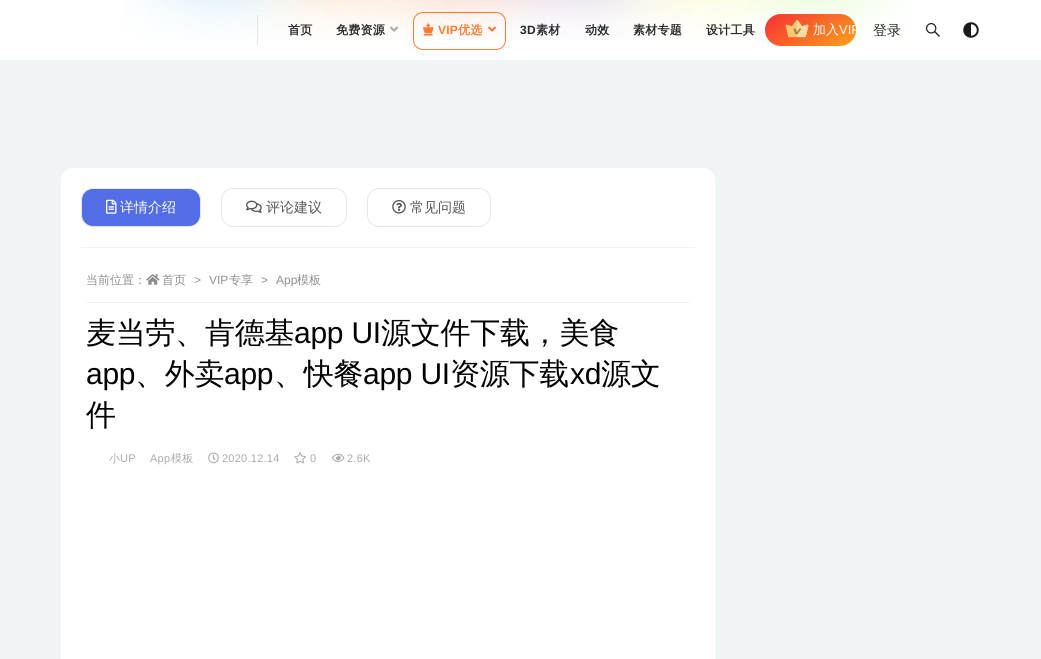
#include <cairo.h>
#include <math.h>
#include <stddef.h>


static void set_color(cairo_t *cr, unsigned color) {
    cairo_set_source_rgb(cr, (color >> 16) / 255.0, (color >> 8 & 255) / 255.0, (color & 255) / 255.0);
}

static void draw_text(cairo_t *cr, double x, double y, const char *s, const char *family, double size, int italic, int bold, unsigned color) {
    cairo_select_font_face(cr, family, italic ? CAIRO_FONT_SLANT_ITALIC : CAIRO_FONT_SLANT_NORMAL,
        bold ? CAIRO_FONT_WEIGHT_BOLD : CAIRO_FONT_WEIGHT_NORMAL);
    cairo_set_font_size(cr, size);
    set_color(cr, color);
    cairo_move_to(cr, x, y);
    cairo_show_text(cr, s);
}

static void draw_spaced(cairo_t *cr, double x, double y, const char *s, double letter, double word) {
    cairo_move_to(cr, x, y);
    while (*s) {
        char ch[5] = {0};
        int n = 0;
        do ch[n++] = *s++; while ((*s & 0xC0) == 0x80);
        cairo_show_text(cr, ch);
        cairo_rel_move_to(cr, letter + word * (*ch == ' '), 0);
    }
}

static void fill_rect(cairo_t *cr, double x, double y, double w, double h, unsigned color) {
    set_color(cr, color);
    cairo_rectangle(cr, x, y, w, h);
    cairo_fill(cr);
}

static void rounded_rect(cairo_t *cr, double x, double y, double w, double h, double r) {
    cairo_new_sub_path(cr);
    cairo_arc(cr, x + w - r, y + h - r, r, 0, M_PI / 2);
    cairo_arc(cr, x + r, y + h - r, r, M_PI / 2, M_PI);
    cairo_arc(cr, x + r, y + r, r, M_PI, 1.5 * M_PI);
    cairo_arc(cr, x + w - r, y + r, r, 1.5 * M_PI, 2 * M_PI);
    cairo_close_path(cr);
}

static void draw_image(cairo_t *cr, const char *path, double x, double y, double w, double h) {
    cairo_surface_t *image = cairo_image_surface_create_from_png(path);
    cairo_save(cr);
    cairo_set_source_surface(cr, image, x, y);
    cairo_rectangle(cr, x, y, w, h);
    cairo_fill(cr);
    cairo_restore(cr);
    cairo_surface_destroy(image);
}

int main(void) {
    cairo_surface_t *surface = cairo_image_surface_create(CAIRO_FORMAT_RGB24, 1041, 659);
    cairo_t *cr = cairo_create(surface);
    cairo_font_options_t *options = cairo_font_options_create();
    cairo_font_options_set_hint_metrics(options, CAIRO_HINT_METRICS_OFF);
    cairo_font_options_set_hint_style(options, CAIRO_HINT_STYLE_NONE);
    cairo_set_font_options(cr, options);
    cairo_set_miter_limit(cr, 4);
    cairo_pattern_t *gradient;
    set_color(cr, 0xF0F4F5);
    cairo_paint(cr);
    fill_rect(cr, 0, 0, 1041, 60, 0xFFFFFF);
    fill_rect(cr, 257, 15, 1, 30, 0xE6E6E6);
    cairo_select_font_face(cr, "WenQuanYi Zen Hei", CAIRO_FONT_SLANT_NORMAL, CAIRO_FONT_WEIGHT_BOLD);
    cairo_set_font_size(cr, 12);
    set_color(cr, 0x212529);
    draw_spaced(cr, 288, 34, "首页", 0.25, 0);
    draw_spaced(cr, 336, 34, "免费资源", 0.25, 0);
    draw_image(cr, "assets/img2.png", 390, 26, 9, 6);
    draw_image(cr, "assets/img3.png", 423, 23, 11, 13);
    draw_image(cr, "assets/img4.png", 488, 26, 9, 6);
    rounded_rect(cr, 413.5, 12.5, 92, 37, 9.5);
    set_color(cr, 0xFF7A32);
    cairo_set_line_width(cr, 1);
    cairo_stroke(cr);
    cairo_select_font_face(cr, "Liberation Sans", CAIRO_FONT_SLANT_NORMAL, CAIRO_FONT_WEIGHT_BOLD);
    draw_spaced(cr, 438, 34, "VIP", 0.25, 0);
    cairo_select_font_face(cr, "WenQuanYi Zen Hei", CAIRO_FONT_SLANT_NORMAL, CAIRO_FONT_WEIGHT_BOLD);
    draw_spaced(cr, 458, 34, "优选", 0.25, 0);
    cairo_select_font_face(cr, "Liberation Sans", CAIRO_FONT_SLANT_NORMAL, CAIRO_FONT_WEIGHT_BOLD);
    set_color(cr, 0x212529);
    draw_spaced(cr, 520, 34, "3D", 0.25, 0);
    cairo_select_font_face(cr, "WenQuanYi Zen Hei", CAIRO_FONT_SLANT_NORMAL, CAIRO_FONT_WEIGHT_BOLD);
    draw_spaced(cr, 536, 34, "素材", 0.25, 0);
    draw_spaced(cr, 585, 34, "动效", 0.25, 0);
    draw_spaced(cr, 633, 34, "素材专题", 0.25, 0);
    draw_spaced(cr, 706, 34, "设计工具", 0.25, 0);
    gradient = cairo_pattern_create_linear(793, -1.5, 828, 62);
    cairo_pattern_add_color_stop_rgba(gradient, 0, 0.984, 0.137, 0.204, 1);
    cairo_pattern_add_color_stop_rgba(gradient, 1, 1, 0.643, 0.106, 1);
    cairo_set_source(cr, gradient);
    cairo_pattern_destroy(gradient);
    rounded_rect(cr, 765, 14, 91, 32, 16);
    cairo_fill(cr);
    draw_image(cr, "assets/img5.png", 785, 20, 24, 18);
    draw_text(cr, 813, 34, "加入", "WenQuanYi Zen Hei Medium", 13, 0, 0, 0xFFFFFF);
    cairo_save(cr);
    rounded_rect(cr, 765, 14, 91, 32, 16);
    cairo_clip(cr);
    draw_text(cr, 839, 34, "VIP", "Liberation Sans", 13, 0, 0, 0xFFFFFF);
    cairo_restore(cr);
    draw_text(cr, 873, 35, "登录", "WenQuanYi Zen Hei Medium", 14, 0, 0, 0x212529);
    draw_image(cr, "assets/img1.png", 124, 0, 787, 40);
    draw_image(cr, "assets/img6.png", 926, 23, 14, 14);
    draw_image(cr, "assets/img7.png", 963, 22, 16, 16);
    set_color(cr, 0xFFFFFF);
    cairo_new_path(cr);
    cairo_move_to(cr, 73, 168);
    cairo_line_to(cr, 703, 168);
    cairo_curve_to(cr, 709.5, 168, 715, 173.5, 715, 180);
    cairo_line_to(cr, 715, 248);
    cairo_line_to(cr, 61, 248);
    cairo_line_to(cr, 61, 180);
    cairo_curve_to(cr, 61, 173.5, 66.5, 168, 73, 168);
    cairo_close_path(cr);
    cairo_fill(cr);
    fill_rect(cr, 81, 247, 614, 1, 0xF0F4F5);
    set_color(cr, 0x536DE6);
    rounded_rect(cr, 81.5, 188.5, 119, 38, 11.5);
    cairo_fill_preserve(cr);
    set_color(cr, 0xE4E6E8);
    cairo_stroke(cr);
    draw_image(cr, "assets/img8.png", 106, 199, 11, 15);
    draw_text(cr, 120, 212, "详情介绍", "WenQuanYi Zen Hei Medium", 14, 0, 0, 0xFFFFFF);
    rounded_rect(cr, 221.5, 188.5, 125, 38, 11.5);
    set_color(cr, 0xE4E6E8);
    cairo_stroke(cr);
    draw_image(cr, "assets/img9.png", 246, 200, 16, 13);
    draw_text(cr, 266, 212, "评论建议", "WenQuanYi Zen Hei Medium", 14, 0, 0, 0x555555);
    rounded_rect(cr, 367.5, 188.5, 123, 38, 11.5);
    set_color(cr, 0xE4E6E8);
    cairo_stroke(cr);
    draw_image(cr, "assets/img10.png", 392, 200, 14, 14);
    draw_text(cr, 410, 212, "常见问题", "WenQuanYi Zen Hei Medium", 14, 0, 0, 0x555555);
    fill_rect(cr, 61, 248, 654, 411, 0xFFFFFF);
    fill_rect(cr, 86, 302, 604, 1, 0xF0F4F5);
    draw_text(cr, 86, 284, "当前位置：", "WenQuanYi Zen Hei Medium", 12, 0, 0, 0x8F8F8F);
    draw_image(cr, "assets/img11.png", 146, 274, 14, 11);
    draw_text(cr, 162, 284, "首页", "WenQuanYi Zen Hei Medium", 12, 0, 0, 0x8F8F8F);
    draw_text(cr, 194, 284, ">", "Liberation Sans", 12, 0, 0, 0x8F8F8F);
    draw_text(cr, 209, 284, "VIP", "Liberation Sans", 12, 0, 0, 0x8F8F8F);
    draw_text(cr, 229, 284, "专享", "WenQuanYi Zen Hei Medium", 12, 0, 0, 0x8F8F8F);
    draw_text(cr, 261, 284, ">", "Liberation Sans", 12, 0, 0, 0x8F8F8F);
    draw_text(cr, 276, 284, "App", "Liberation Sans", 12, 0, 0, 0x8F8F8F);
    draw_text(cr, 297, 284, "模板", "WenQuanYi Zen Hei Medium", 12, 0, 0, 0x8F8F8F);
    cairo_set_font_size(cr, 30);
    set_color(cr, 0x020000);
    draw_spaced(cr, 86, 343, "麦当劳、肯德基", -0.25, 0);
    cairo_select_font_face(cr, "Liberation Sans", CAIRO_FONT_SLANT_NORMAL, CAIRO_FONT_WEIGHT_NORMAL);
    draw_spaced(cr, 294, 343, "app UI", -0.25, 0);
    cairo_select_font_face(cr, "WenQuanYi Zen Hei Medium", CAIRO_FONT_SLANT_NORMAL, CAIRO_FONT_WEIGHT_NORMAL);
    draw_spaced(cr, 381, 343, "源文件下载，美食", -0.25, 0);
    cairo_select_font_face(cr, "Liberation Sans", CAIRO_FONT_SLANT_NORMAL, CAIRO_FONT_WEIGHT_NORMAL);
    draw_spaced(cr, 86, 384, "app", -0.25, 0);
    cairo_select_font_face(cr, "WenQuanYi Zen Hei Medium", CAIRO_FONT_SLANT_NORMAL, CAIRO_FONT_WEIGHT_NORMAL);
    draw_spaced(cr, 135, 384, "、外卖", -0.25, 0);
    cairo_select_font_face(cr, "Liberation Sans", CAIRO_FONT_SLANT_NORMAL, CAIRO_FONT_WEIGHT_NORMAL);
    draw_spaced(cr, 224, 384, "app", -0.25, 0);
    cairo_select_font_face(cr, "WenQuanYi Zen Hei Medium", CAIRO_FONT_SLANT_NORMAL, CAIRO_FONT_WEIGHT_NORMAL);
    draw_spaced(cr, 274, 384, "、快餐", -0.25, 0);
    cairo_select_font_face(cr, "Liberation Sans", CAIRO_FONT_SLANT_NORMAL, CAIRO_FONT_WEIGHT_NORMAL);
    draw_spaced(cr, 363, 384, "app UI", -0.25, 0);
    cairo_select_font_face(cr, "WenQuanYi Zen Hei Medium", CAIRO_FONT_SLANT_NORMAL, CAIRO_FONT_WEIGHT_NORMAL);
    draw_spaced(cr, 450, 384, "资源下载", -0.25, 0);
    cairo_select_font_face(cr, "Liberation Sans", CAIRO_FONT_SLANT_NORMAL, CAIRO_FONT_WEIGHT_NORMAL);
    draw_spaced(cr, 570, 384, "xd", -0.25, 0);
    cairo_select_font_face(cr, "WenQuanYi Zen Hei Medium", CAIRO_FONT_SLANT_NORMAL, CAIRO_FONT_WEIGHT_NORMAL);
    draw_spaced(cr, 601, 384, "源文", -0.25, 0);
    draw_spaced(cr, 86, 425, "件", -0.25, 0);
    cairo_set_font_size(cr, 11);
    set_color(cr, 0xAAAAAA);
    draw_spaced(cr, 109, 462, "小", 0.25, 0);
    cairo_select_font_face(cr, "Liberation Sans", CAIRO_FONT_SLANT_NORMAL, CAIRO_FONT_WEIGHT_NORMAL);
    draw_spaced(cr, 120, 462, "UP", 0.25, 0);
    draw_spaced(cr, 150, 462, "App", 0.25, 0);
    cairo_select_font_face(cr, "WenQuanYi Zen Hei Medium", CAIRO_FONT_SLANT_NORMAL, CAIRO_FONT_WEIGHT_NORMAL);
    draw_spaced(cr, 171, 462, "模板", 0.25, 0);
    draw_image(cr, "assets/img12.png", 208, 452, 11, 12);
    cairo_select_font_face(cr, "Liberation Sans", CAIRO_FONT_SLANT_NORMAL, CAIRO_FONT_WEIGHT_NORMAL);
    draw_spaced(cr, 222, 462, "2020.12.14", 0.25, 0);
    draw_image(cr, "assets/img13.png", 294, 452, 12, 12);
    draw_spaced(cr, 310, 462, "0", 0.25, 0);
    draw_image(cr, "assets/img14.png", 332, 453, 13, 9);
    draw_spaced(cr, 347, 462, "2.6K", 0.25, 0);
    cairo_surface_write_to_png(surface, "output.png");
    cairo_font_options_destroy(options);
    cairo_destroy(cr);
    cairo_surface_destroy(surface);
    return 0;
}
